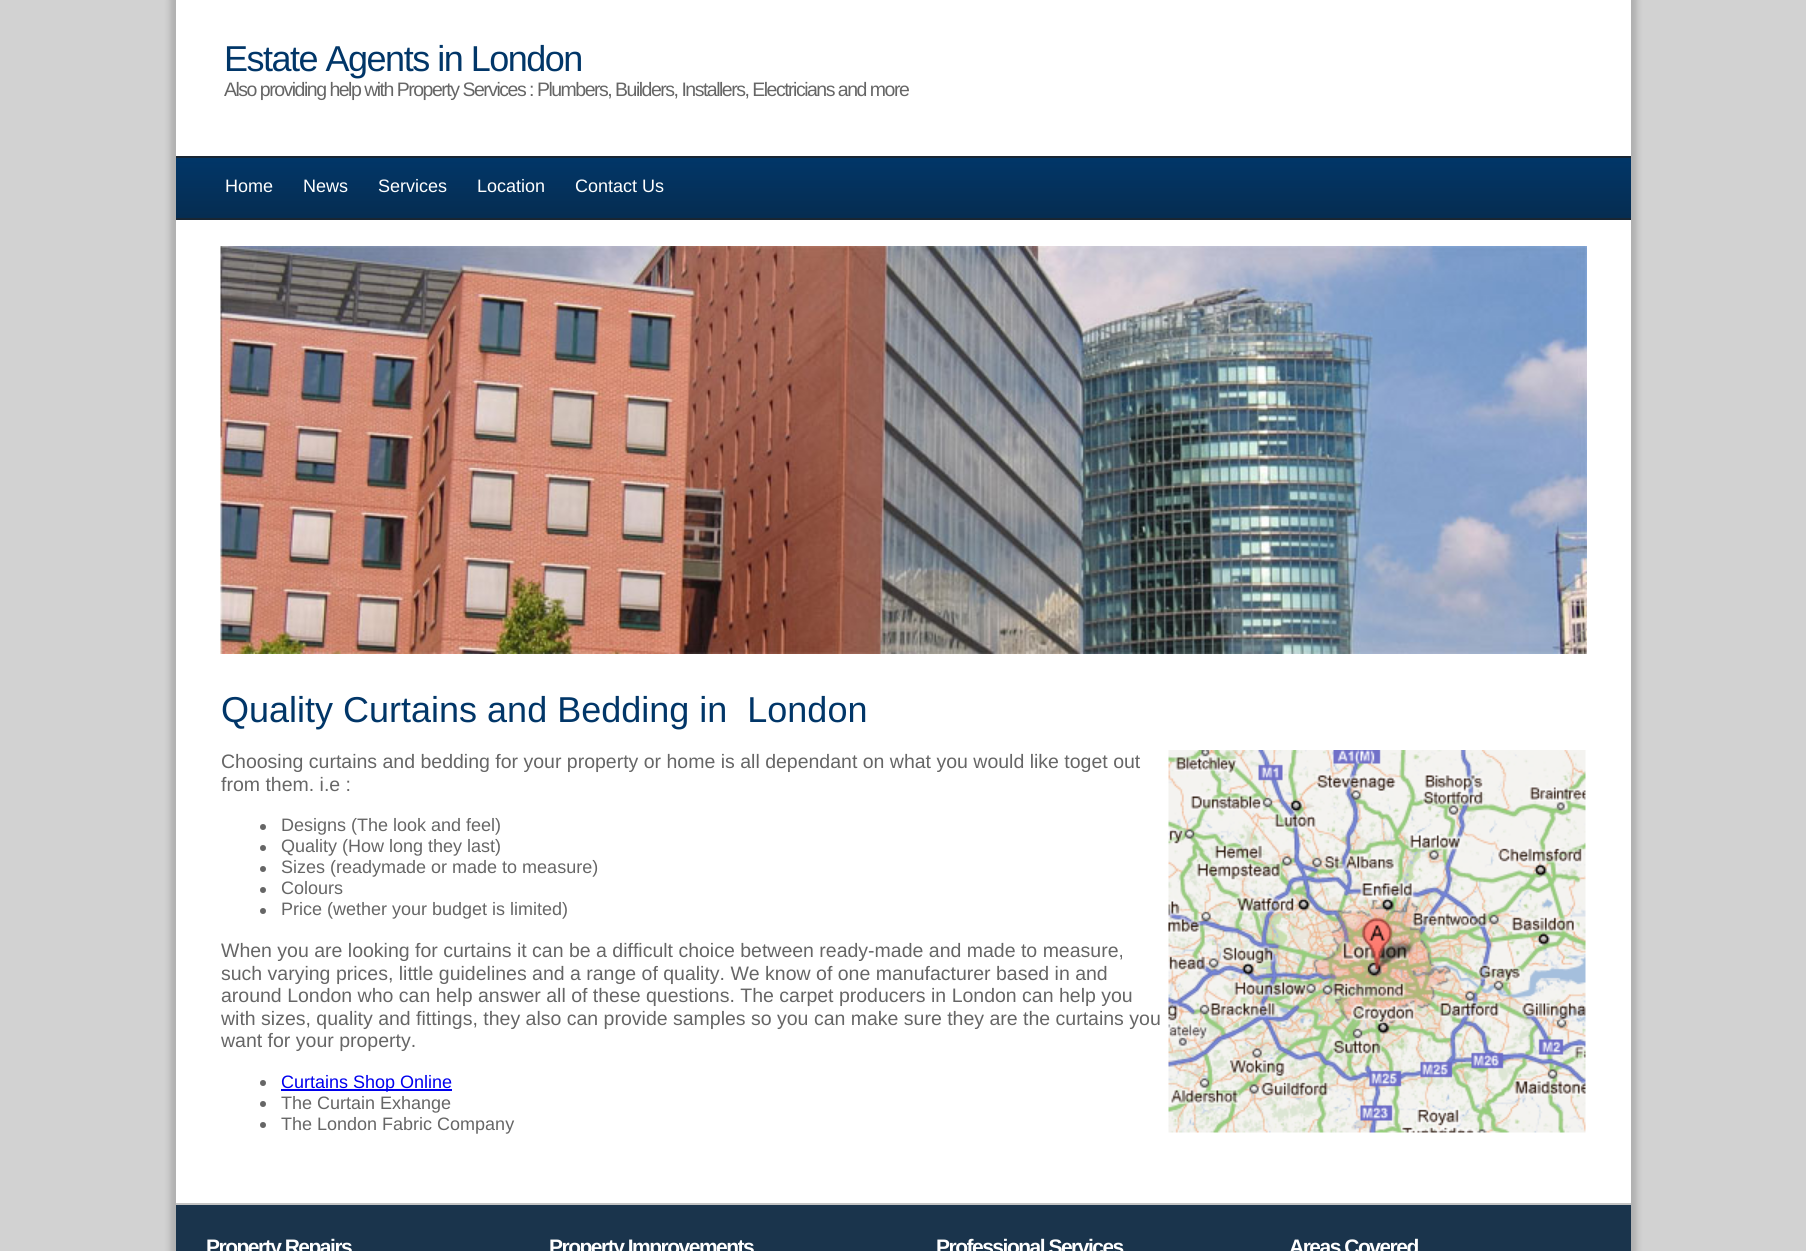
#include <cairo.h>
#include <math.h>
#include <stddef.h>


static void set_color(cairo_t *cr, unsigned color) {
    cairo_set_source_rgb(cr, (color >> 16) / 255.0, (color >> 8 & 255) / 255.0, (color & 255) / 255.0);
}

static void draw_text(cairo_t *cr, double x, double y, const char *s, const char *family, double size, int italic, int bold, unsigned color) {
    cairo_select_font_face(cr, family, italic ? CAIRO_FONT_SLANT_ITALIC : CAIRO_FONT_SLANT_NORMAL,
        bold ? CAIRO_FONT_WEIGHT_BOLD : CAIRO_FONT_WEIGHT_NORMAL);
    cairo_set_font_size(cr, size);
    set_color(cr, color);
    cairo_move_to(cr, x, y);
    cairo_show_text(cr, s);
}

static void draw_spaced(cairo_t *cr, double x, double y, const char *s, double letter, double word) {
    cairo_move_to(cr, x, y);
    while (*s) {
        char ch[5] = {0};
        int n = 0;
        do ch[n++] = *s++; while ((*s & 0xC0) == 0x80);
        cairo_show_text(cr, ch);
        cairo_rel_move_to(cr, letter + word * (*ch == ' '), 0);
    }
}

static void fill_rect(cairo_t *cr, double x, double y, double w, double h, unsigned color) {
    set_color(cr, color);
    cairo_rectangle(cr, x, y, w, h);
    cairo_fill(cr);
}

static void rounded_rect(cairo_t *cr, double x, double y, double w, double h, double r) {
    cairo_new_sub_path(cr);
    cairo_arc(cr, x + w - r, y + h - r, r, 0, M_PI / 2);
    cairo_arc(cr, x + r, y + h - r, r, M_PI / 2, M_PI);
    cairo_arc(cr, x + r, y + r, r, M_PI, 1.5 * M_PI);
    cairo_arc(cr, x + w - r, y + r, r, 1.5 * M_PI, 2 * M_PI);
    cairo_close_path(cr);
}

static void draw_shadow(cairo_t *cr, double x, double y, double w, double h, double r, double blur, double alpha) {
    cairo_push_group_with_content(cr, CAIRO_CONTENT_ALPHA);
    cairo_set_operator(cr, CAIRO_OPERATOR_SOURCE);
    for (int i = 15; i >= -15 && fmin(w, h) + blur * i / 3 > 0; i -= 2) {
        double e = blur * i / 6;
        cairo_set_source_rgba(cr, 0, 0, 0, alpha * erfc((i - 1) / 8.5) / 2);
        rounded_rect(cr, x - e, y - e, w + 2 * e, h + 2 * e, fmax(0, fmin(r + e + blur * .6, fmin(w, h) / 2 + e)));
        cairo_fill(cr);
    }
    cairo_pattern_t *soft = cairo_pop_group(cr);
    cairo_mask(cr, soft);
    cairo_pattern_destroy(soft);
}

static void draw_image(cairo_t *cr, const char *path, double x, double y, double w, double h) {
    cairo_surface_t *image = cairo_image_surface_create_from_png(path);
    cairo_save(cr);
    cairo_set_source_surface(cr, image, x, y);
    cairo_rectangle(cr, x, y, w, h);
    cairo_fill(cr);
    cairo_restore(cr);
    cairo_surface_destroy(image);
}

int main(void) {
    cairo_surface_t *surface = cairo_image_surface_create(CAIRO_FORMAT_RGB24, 1806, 1251);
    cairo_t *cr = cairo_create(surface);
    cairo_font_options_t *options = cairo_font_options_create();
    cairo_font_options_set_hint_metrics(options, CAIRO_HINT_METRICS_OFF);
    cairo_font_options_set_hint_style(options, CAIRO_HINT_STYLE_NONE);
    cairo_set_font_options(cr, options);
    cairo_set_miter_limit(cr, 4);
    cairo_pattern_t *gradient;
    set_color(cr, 0xD2D2D2);
    cairo_paint(cr);
    set_color(cr, 0xB0B0B0);
    draw_shadow(cr, 170, -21, 1467, 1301, 20, 3, 1);
    fill_rect(cr, 176, 0, 1455, 1203, 0xFFFFFF);
    cairo_select_font_face(cr, "Liberation Sans", CAIRO_FONT_SLANT_NORMAL, CAIRO_FONT_WEIGHT_NORMAL);
    cairo_set_font_size(cr, 36);
    set_color(cr, 0x013668);
    draw_spaced(cr, 224, 71, "Estate Agents in London", -1.5, 0);
    cairo_set_font_size(cr, 19.5);
    set_color(cr, 0x666666);
    draw_spaced(cr, 224, 96, "Also providing help with Property Services : Plumbers, Builders, Installers, Electricians and more", -1.5, 0);
    gradient = cairo_pattern_create_linear(176, 158, 176, 218);
    cairo_pattern_add_color_stop_rgba(gradient, 0, 0.004, 0.212, 0.408, 1);
    cairo_pattern_add_color_stop_rgba(gradient, 1, 0.024, 0.176, 0.318, 1);
    cairo_set_source(cr, gradient);
    cairo_pattern_destroy(gradient);
    cairo_rectangle(cr, 176, 158, 1455, 60);
    cairo_fill(cr);
    fill_rect(cr, 176, 156, 1455, 2, 0x192633);
    fill_rect(cr, 176, 218, 1455, 2, 0x192633);
    draw_text(cr, 225, 192, "Home", "Liberation Sans", 18, 0, 0, 0xFFFFFF);
    draw_text(cr, 303, 192, "News", "Liberation Sans", 18, 0, 0, 0xFFFFFF);
    draw_text(cr, 378, 192, "Services", "Liberation Sans", 18, 0, 0, 0xFFFFFF);
    draw_text(cr, 477, 192, "Location", "Liberation Sans", 18, 0, 0, 0xFFFFFF);
    draw_text(cr, 575, 192, "Contact Us", "Liberation Sans", 18, 0, 0, 0xFFFFFF);
    draw_image(cr, "assets/img1.png", 220, 246, 1367, 408);
    draw_text(cr, 221, 722, "Quality Curtains and Bedding in  London", "Liberation Sans", 36, 0, 0, 0x013668);
    draw_text(cr, 221, 768, "Choosing curtains and bedding for your property or home is all dependant on what you would like toget out", "Liberation Sans", 19.5, 0, 0, 0x666666);
    draw_text(cr, 221, 791, "from them. i.e :", "Liberation Sans", 19.5, 0, 0, 0x666666);
    draw_image(cr, "assets/img2.png", 1168, 750, 418, 383);
    cairo_arc(cr, 263, 827, 3, 0, 2 * M_PI);
    cairo_fill(cr);
    draw_text(cr, 281, 831, "Designs (The look and feel)", "Liberation Sans", 18, 0, 0, 0x666666);
    cairo_new_path(cr);
    cairo_arc(cr, 263, 848, 3, 0, 2 * M_PI);
    cairo_fill(cr);
    draw_text(cr, 281, 852, "Quality (How long they last)", "Liberation Sans", 18, 0, 0, 0x666666);
    cairo_new_path(cr);
    cairo_arc(cr, 263, 869, 3, 0, 2 * M_PI);
    cairo_fill(cr);
    draw_text(cr, 281, 873, "Sizes (readymade or made to measure)", "Liberation Sans", 18, 0, 0, 0x666666);
    cairo_new_path(cr);
    cairo_arc(cr, 263, 890, 3, 0, 2 * M_PI);
    cairo_fill(cr);
    draw_text(cr, 281, 894, "Colours", "Liberation Sans", 18, 0, 0, 0x666666);
    cairo_new_path(cr);
    cairo_arc(cr, 263, 911, 3, 0, 2 * M_PI);
    cairo_fill(cr);
    draw_text(cr, 281, 915, "Price (wether your budget is limited)", "Liberation Sans", 18, 0, 0, 0x666666);
    draw_text(cr, 221, 957, "When you are looking for curtains it can be a difficult choice between ready-made and made to measure,", "Liberation Sans", 19.5, 0, 0, 0x666666);
    draw_text(cr, 221, 980, "such varying prices, little guidelines and a range of quality. We know of one manufacturer based in and", "Liberation Sans", 19.5, 0, 0, 0x666666);
    draw_text(cr, 221, 1002, "around London who can help answer all of these questions. The carpet producers in London can help you", "Liberation Sans", 19.5, 0, 0, 0x666666);
    draw_text(cr, 221, 1025, "with sizes, quality and fittings, they also can provide samples so you can make sure they are the curtains you", "Liberation Sans", 19.5, 0, 0, 0x666666);
    draw_text(cr, 221, 1047, "want for your property.", "Liberation Sans", 19.5, 0, 0, 0x666666);
    cairo_new_path(cr);
    cairo_arc(cr, 263, 1083, 3, 0, 2 * M_PI);
    cairo_fill(cr);
    fill_rect(cr, 281, 1089, 171, 2, 0x0000EE);
    draw_text(cr, 281, 1088, "Curtains Shop Online", "Liberation Sans", 18, 0, 0, 0x0000EE);
    set_color(cr, 0x666666);
    cairo_new_path(cr);
    cairo_arc(cr, 263, 1104, 3, 0, 2 * M_PI);
    cairo_fill(cr);
    draw_text(cr, 281, 1109, "The Curtain Exhange", "Liberation Sans", 18, 0, 0, 0x666666);
    cairo_new_path(cr);
    cairo_arc(cr, 263, 1125, 3, 0, 2 * M_PI);
    cairo_fill(cr);
    draw_text(cr, 281, 1130, "The London Fabric Company", "Liberation Sans", 18, 0, 0, 0x666666);
    fill_rect(cr, 176, 1205, 1455, 46, 0x1A344C);
    fill_rect(cr, 176, 1203, 1455, 2, 0xC3C4C4);
    cairo_select_font_face(cr, "Liberation Sans", CAIRO_FONT_SLANT_NORMAL, CAIRO_FONT_WEIGHT_BOLD);
    cairo_set_font_size(cr, 21);
    set_color(cr, 0xFFFFFF);
    draw_spaced(cr, 206, 1254, "Property Repairs", -1.5, 0);
    draw_spaced(cr, 549, 1254, "Property Improvements", -1.5, 0);
    draw_spaced(cr, 936, 1254, "Professional Services", -1.5, 0);
    draw_spaced(cr, 1289, 1254, "Areas Covered", -1.5, 0);
    cairo_surface_write_to_png(surface, "output.png");
    cairo_font_options_destroy(options);
    cairo_destroy(cr);
    cairo_surface_destroy(surface);
    return 0;
}
